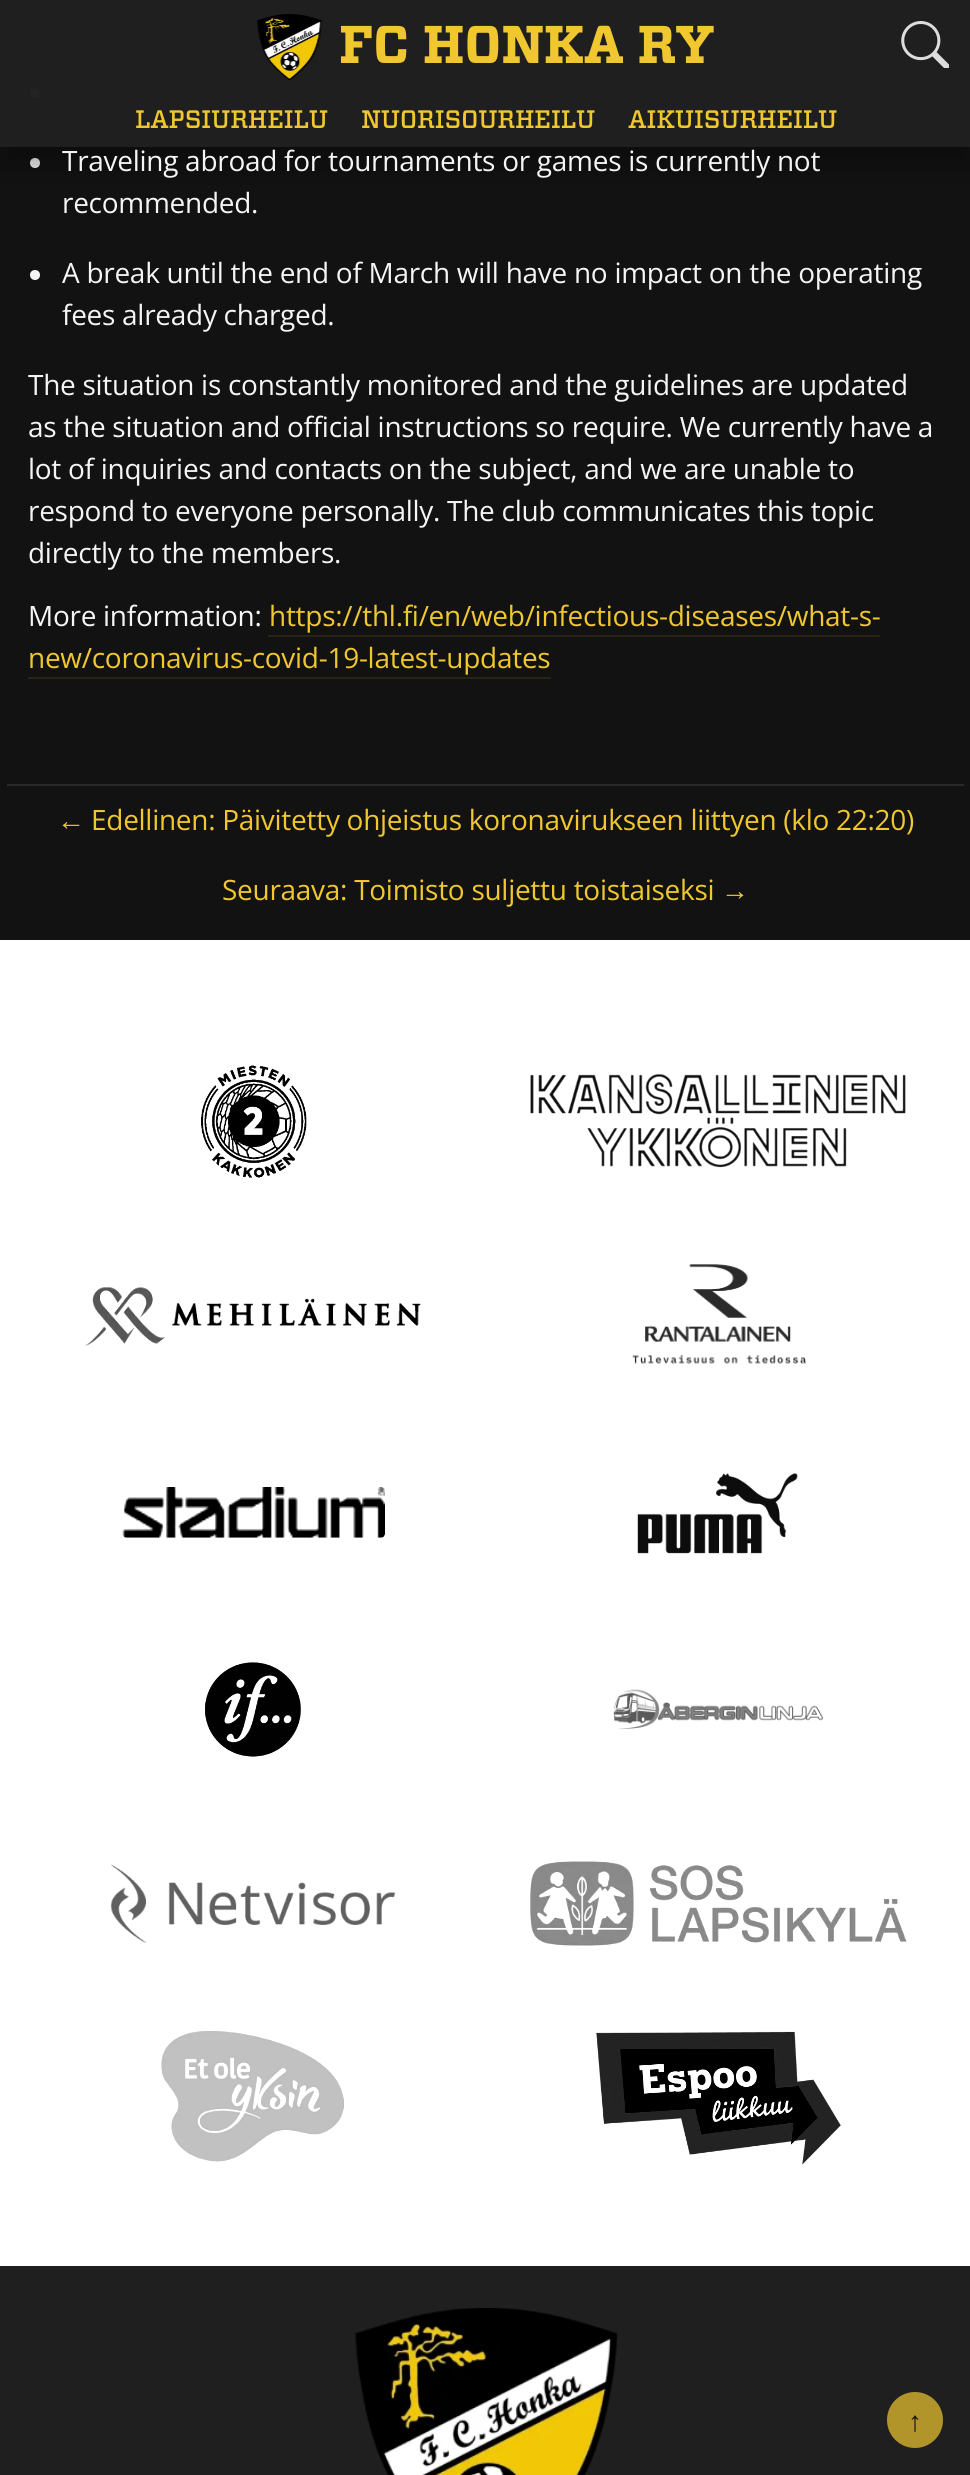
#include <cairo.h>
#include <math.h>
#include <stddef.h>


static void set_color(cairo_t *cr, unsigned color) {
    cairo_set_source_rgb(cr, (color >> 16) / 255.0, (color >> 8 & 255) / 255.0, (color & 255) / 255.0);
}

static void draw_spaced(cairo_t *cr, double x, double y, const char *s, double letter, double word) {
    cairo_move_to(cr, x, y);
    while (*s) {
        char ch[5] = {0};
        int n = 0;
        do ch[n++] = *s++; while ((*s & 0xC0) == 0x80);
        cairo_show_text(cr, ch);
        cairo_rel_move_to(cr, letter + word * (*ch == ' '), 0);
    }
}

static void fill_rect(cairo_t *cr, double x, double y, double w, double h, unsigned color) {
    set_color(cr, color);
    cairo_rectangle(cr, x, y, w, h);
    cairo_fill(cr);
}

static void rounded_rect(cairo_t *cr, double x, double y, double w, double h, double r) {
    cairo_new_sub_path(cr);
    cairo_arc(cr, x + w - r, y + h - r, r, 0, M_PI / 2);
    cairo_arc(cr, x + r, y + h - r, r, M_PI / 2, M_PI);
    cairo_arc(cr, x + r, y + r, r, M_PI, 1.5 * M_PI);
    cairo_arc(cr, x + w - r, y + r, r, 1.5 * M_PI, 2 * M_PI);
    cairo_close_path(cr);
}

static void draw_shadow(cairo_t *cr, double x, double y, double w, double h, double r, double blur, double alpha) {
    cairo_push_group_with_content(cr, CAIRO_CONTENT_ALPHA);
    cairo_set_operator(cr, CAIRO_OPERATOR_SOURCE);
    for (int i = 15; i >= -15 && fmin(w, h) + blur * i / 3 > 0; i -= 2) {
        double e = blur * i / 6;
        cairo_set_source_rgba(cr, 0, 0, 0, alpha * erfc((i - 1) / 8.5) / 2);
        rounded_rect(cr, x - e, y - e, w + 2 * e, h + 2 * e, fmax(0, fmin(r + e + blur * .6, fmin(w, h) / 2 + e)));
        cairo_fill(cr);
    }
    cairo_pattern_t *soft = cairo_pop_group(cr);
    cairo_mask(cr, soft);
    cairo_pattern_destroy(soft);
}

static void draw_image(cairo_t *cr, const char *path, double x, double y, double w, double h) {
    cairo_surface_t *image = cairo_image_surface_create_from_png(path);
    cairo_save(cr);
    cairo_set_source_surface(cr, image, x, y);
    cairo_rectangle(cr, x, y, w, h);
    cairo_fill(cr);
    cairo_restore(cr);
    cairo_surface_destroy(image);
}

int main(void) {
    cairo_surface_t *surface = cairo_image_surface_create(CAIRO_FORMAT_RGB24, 970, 2475);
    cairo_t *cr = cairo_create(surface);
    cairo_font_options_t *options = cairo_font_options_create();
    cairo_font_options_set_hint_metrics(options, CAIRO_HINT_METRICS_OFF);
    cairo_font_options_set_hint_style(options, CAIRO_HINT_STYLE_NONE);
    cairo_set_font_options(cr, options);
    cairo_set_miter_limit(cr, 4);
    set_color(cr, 0x121212);
    cairo_paint(cr);
    fill_rect(cr, 0, 0, 970, 147, 0x1F1F1F);
    set_color(cr, 0x232323);
    cairo_arc(cr, 35, 93, 5, 0, 2 * M_PI);
    cairo_fill(cr);
    set_color(cr, 0xF5F5F5);
    cairo_arc(cr, 35, 163, 5, 0, 2 * M_PI);
    cairo_fill(cr);
    cairo_save(cr);
    cairo_rectangle(cr, 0, 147, 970, 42);
    cairo_clip(cr);
    set_color(cr, 0x000000);
    draw_shadow(cr, 0, 21, 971, 147, 0, 14, 0.3);
    cairo_restore(cr);
    draw_image(cr, "assets/img1.png", 257, 14, 65, 67);
    cairo_select_font_face(cr, "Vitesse", CAIRO_FONT_SLANT_NORMAL, CAIRO_FONT_WEIGHT_BOLD);
    cairo_set_font_size(cr, 53);
    set_color(cr, 0xF0C72E);
    draw_spaced(cr, 339, 63, "FC HONKA RY", -0.28, 0);
    cairo_select_font_face(cr, "Vitesse Medium", CAIRO_FONT_SLANT_NORMAL, CAIRO_FONT_WEIGHT_NORMAL);
    cairo_set_font_size(cr, 25.25);
    draw_spaced(cr, 135, 128, "LAPSIURHEILU", -0.28, 0);
    draw_spaced(cr, 361, 128, "NUORISOURHEILU", -0.28, 0);
    draw_spaced(cr, 628, 128, "AIKUISURHEILU", -0.28, 0);
    draw_image(cr, "assets/img2.png", 901, 21, 48, 47);
    cairo_select_font_face(cr, "Open Sans", CAIRO_FONT_SLANT_NORMAL, CAIRO_FONT_WEIGHT_NORMAL);
    cairo_set_font_size(cr, 28);
    set_color(cr, 0xF5F5F5);
    draw_spaced(cr, 62, 171, "Traveling abroad for tournaments or games is currently not", -0.28, 0);
    draw_spaced(cr, 62, 213, "recommended.", -0.28, 0);
    cairo_new_path(cr);
    cairo_arc(cr, 35, 275, 5, 0, 2 * M_PI);
    cairo_fill(cr);
    draw_spaced(cr, 62, 283, "A break until the end of March will have no impact on the operating", -0.28, 0);
    draw_spaced(cr, 62, 325, "fees already charged.", -0.28, 0);
    draw_spaced(cr, 28, 395, "The situation is constantly monitored and the guidelines are updated", -0.28, 0);
    draw_spaced(cr, 28, 437, "as the situation and official instructions so require. We currently have a", -0.28, 0);
    draw_spaced(cr, 28, 479, "lot of inquiries and contacts on the subject, and we are unable to", -0.28, 0);
    draw_spaced(cr, 28, 521, "respond to everyone personally. The club communicates this topic", -0.28, 0);
    draw_spaced(cr, 28, 563, "directly to the members.", -0.28, 0);
    draw_spaced(cr, 28, 626, "More information:", -0.28, 0);
    set_color(cr, 0xF0C72E);
    draw_spaced(cr, 269, 626, "https://thl.fi/en/web/infectious-diseases/what-s-", -0.28, 0);
    fill_rect(cr, 268, 635, 612, 2, 0x282415);
    set_color(cr, 0xF0C72E);
    draw_spaced(cr, 28, 668, "new/coronavirus-covid-19-latest-updates", -0.28, 0);
    fill_rect(cr, 28, 677, 523, 2, 0x282415);
    fill_rect(cr, 7, 784, 957, 2, 0x292929);
    cairo_select_font_face(cr, "Liberation Sans", CAIRO_FONT_SLANT_NORMAL, CAIRO_FONT_WEIGHT_NORMAL);
    set_color(cr, 0xF0C72E);
    draw_spaced(cr, 57, 830, "←", -0.28, 0);
    cairo_select_font_face(cr, "Open Sans", CAIRO_FONT_SLANT_NORMAL, CAIRO_FONT_WEIGHT_NORMAL);
    draw_spaced(cr, 91, 830, "Edellinen: Päivitetty ohjeistus koronavirukseen liittyen (klo 22:20)", -0.28, 0);
    draw_spaced(cr, 222, 900, "Seuraava: Toimisto suljettu toistaiseksi", -0.28, 0);
    cairo_select_font_face(cr, "Liberation Sans", CAIRO_FONT_SLANT_NORMAL, CAIRO_FONT_WEIGHT_NORMAL);
    draw_spaced(cr, 721, 900, "→", -0.28, 0);
    fill_rect(cr, 0, 940, 970, 1326, 0xFFFFFF);
    draw_image(cr, "assets/img3.png", 201, 1065, 106, 113);
    draw_image(cr, "assets/img4.png", 530, 1073, 376, 95);
    draw_image(cr, "assets/img5.png", 85, 1287, 336, 59);
    draw_image(cr, "assets/img6.png", 632, 1264, 174, 100);
    draw_image(cr, "assets/img7.png", 122, 1487, 263, 51);
    draw_image(cr, "assets/img8.png", 637, 1473, 161, 81);
    draw_image(cr, "assets/img9.png", 205, 1662, 96, 95);
    draw_image(cr, "assets/img10.png", 613, 1689, 211, 40);
    draw_image(cr, "assets/img11.png", 110, 1864, 286, 79);
    draw_image(cr, "assets/img12.png", 530, 1861, 377, 85);
    draw_image(cr, "assets/img13.png", 161, 2031, 183, 131);
    draw_image(cr, "assets/img14.png", 596, 2031, 245, 134);
    fill_rect(cr, 0, 2266, 970, 209, 0x1F1F1F);
    draw_image(cr, "assets/img15.png", 355, 2308, 263, 167);
    set_color(cr, 0xB1952A);
    cairo_arc(cr, 915, 2420, 28, 0, 2 * M_PI);
    cairo_fill(cr);
    set_color(cr, 0x151515);
    draw_spaced(cr, 908, 2431, "↑", -0.28, 0);
    cairo_surface_write_to_png(surface, "output.png");
    cairo_font_options_destroy(options);
    cairo_destroy(cr);
    cairo_surface_destroy(surface);
    return 0;
}
